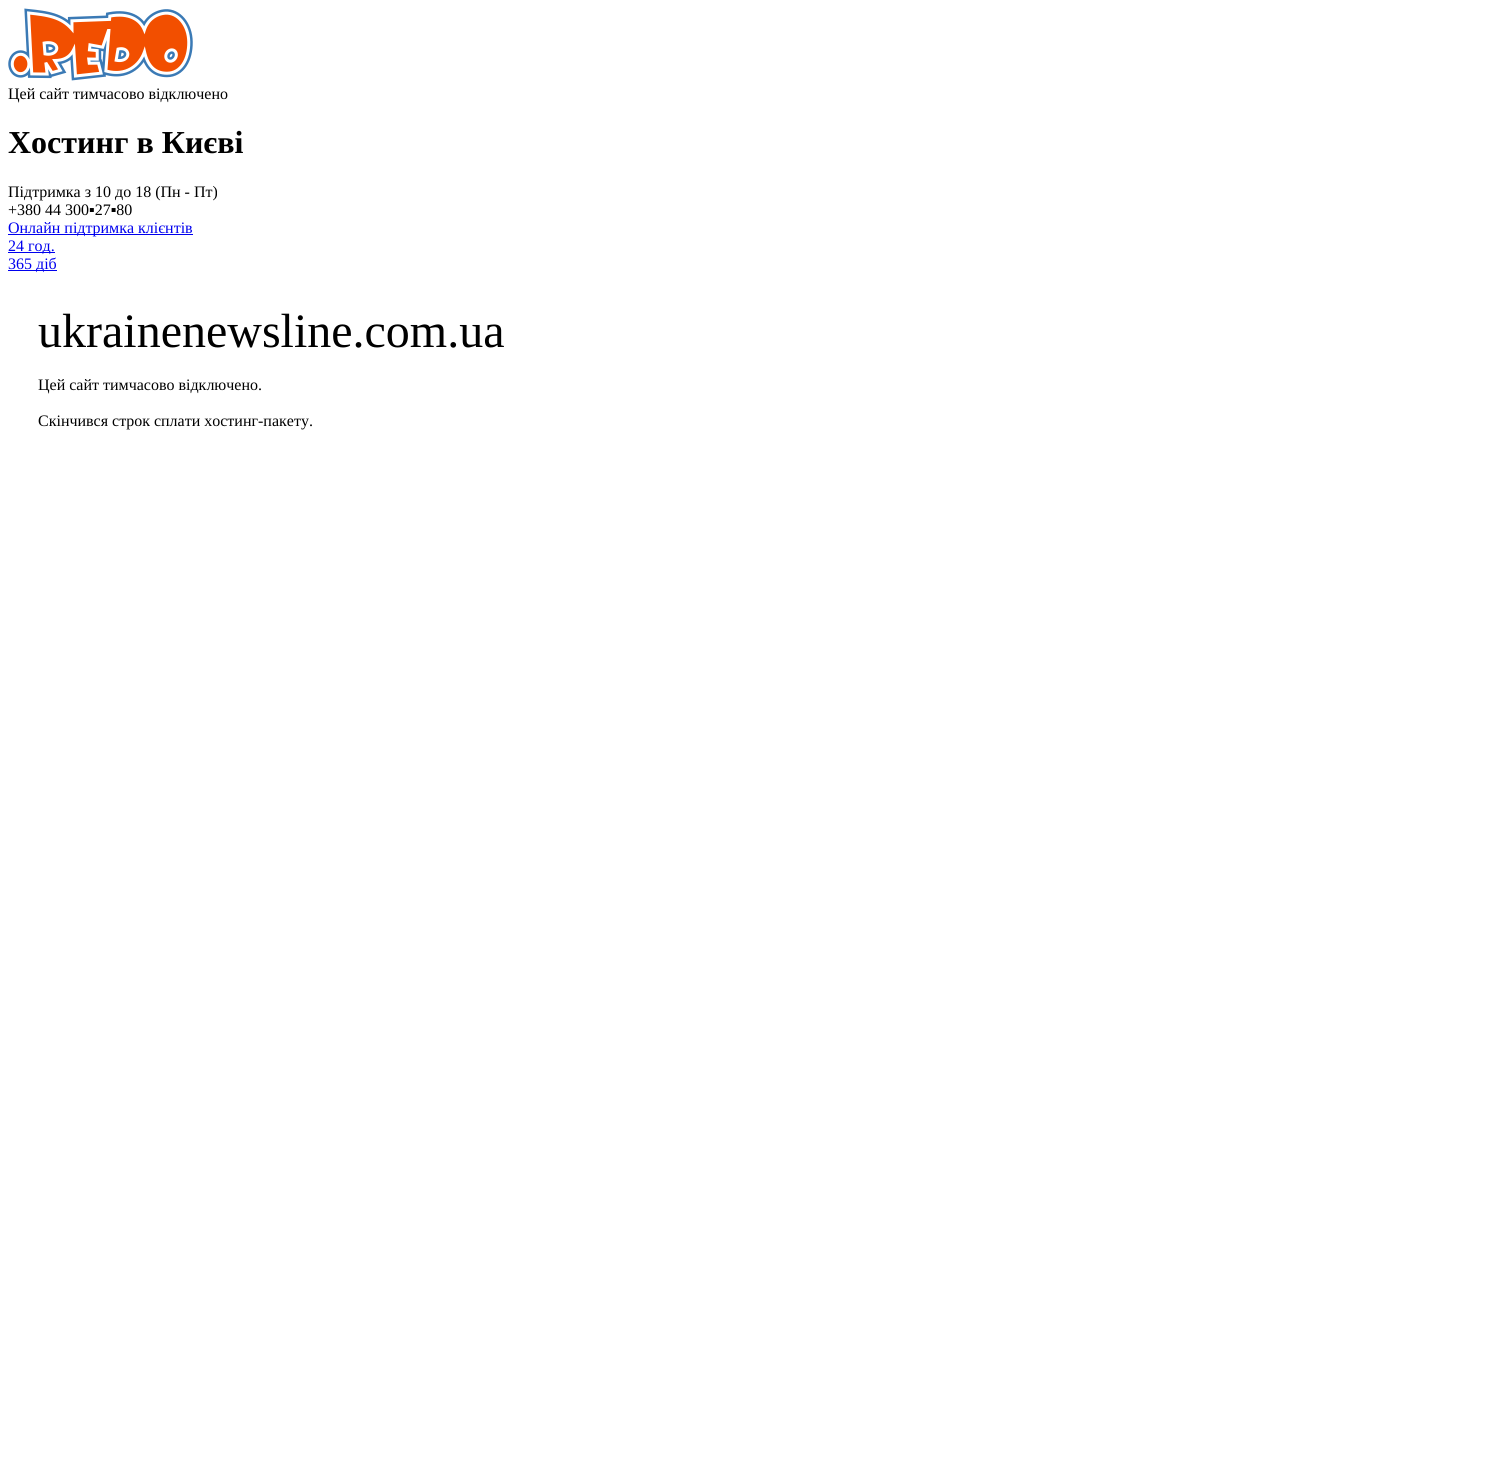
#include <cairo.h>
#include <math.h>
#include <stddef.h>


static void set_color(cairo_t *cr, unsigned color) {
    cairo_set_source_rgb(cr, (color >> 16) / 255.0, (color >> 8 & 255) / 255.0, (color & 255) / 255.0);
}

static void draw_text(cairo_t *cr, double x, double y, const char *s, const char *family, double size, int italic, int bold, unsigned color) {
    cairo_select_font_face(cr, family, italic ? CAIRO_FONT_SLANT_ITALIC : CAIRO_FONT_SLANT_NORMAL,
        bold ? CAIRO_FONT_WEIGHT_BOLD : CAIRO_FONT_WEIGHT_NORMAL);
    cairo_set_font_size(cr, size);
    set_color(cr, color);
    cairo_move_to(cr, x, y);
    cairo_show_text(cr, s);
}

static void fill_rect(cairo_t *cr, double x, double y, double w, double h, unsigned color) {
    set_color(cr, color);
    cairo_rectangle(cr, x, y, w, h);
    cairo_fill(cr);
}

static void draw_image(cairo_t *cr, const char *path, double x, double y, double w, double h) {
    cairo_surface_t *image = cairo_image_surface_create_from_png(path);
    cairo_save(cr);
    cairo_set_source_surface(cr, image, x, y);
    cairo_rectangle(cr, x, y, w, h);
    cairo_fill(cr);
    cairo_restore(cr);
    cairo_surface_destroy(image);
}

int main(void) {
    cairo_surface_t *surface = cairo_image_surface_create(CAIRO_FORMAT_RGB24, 1505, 1477);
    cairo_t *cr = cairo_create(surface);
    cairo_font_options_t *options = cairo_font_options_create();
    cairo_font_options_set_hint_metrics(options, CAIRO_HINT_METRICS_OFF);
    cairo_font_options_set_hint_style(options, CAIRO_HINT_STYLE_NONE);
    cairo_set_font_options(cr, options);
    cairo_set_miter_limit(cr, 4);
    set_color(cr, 0xFFFFFF);
    cairo_paint(cr);
    draw_image(cr, "assets/img1.png", 8, 8, 185, 73);
    draw_text(cr, 8, 99, "Цей сайт тимчасово відключено", "Liberation Serif", 16, 0, 0, 0x000000);
    draw_text(cr, 8, 153, "Хостинг в Києві", "Liberation Serif", 32, 0, 1, 0x000000);
    draw_text(cr, 8, 197, "Підтримка з 10 до 18 (Пн - Пт)", "Liberation Serif", 16, 0, 0, 0x000000);
    draw_text(cr, 8, 215, "+380 44 300▪27▪80", "Liberation Serif", 16, 0, 0, 0x000000);
    fill_rect(cr, 8, 234, 185, 1, 0x0000EE);
    draw_text(cr, 8, 233, "Онлайн підтримка клієнтів", "Liberation Serif", 16, 0, 0, 0x0000EE);
    fill_rect(cr, 8, 252, 47, 1, 0x0000EE);
    draw_text(cr, 8, 251, "24 год.", "Liberation Serif", 16, 0, 0, 0x0000EE);
    fill_rect(cr, 8, 270, 49, 1, 0x0000EE);
    draw_text(cr, 8, 269, "365 діб", "Liberation Serif", 16, 0, 0, 0x0000EE);
    draw_text(cr, 38, 347, "ukrainenewsline.com.ua", "Liberation Serif", 48, 0, 0, 0x000000);
    draw_text(cr, 38, 390, "Цей сайт тимчасово відключено.", "Liberation Serif", 16, 0, 0, 0x000000);
    draw_text(cr, 38, 426, "Скінчився строк сплати хостинг-пакету.", "Liberation Serif", 16, 0, 0, 0x000000);
    cairo_surface_write_to_png(surface, "output.png");
    cairo_font_options_destroy(options);
    cairo_destroy(cr);
    cairo_surface_destroy(surface);
    return 0;
}
